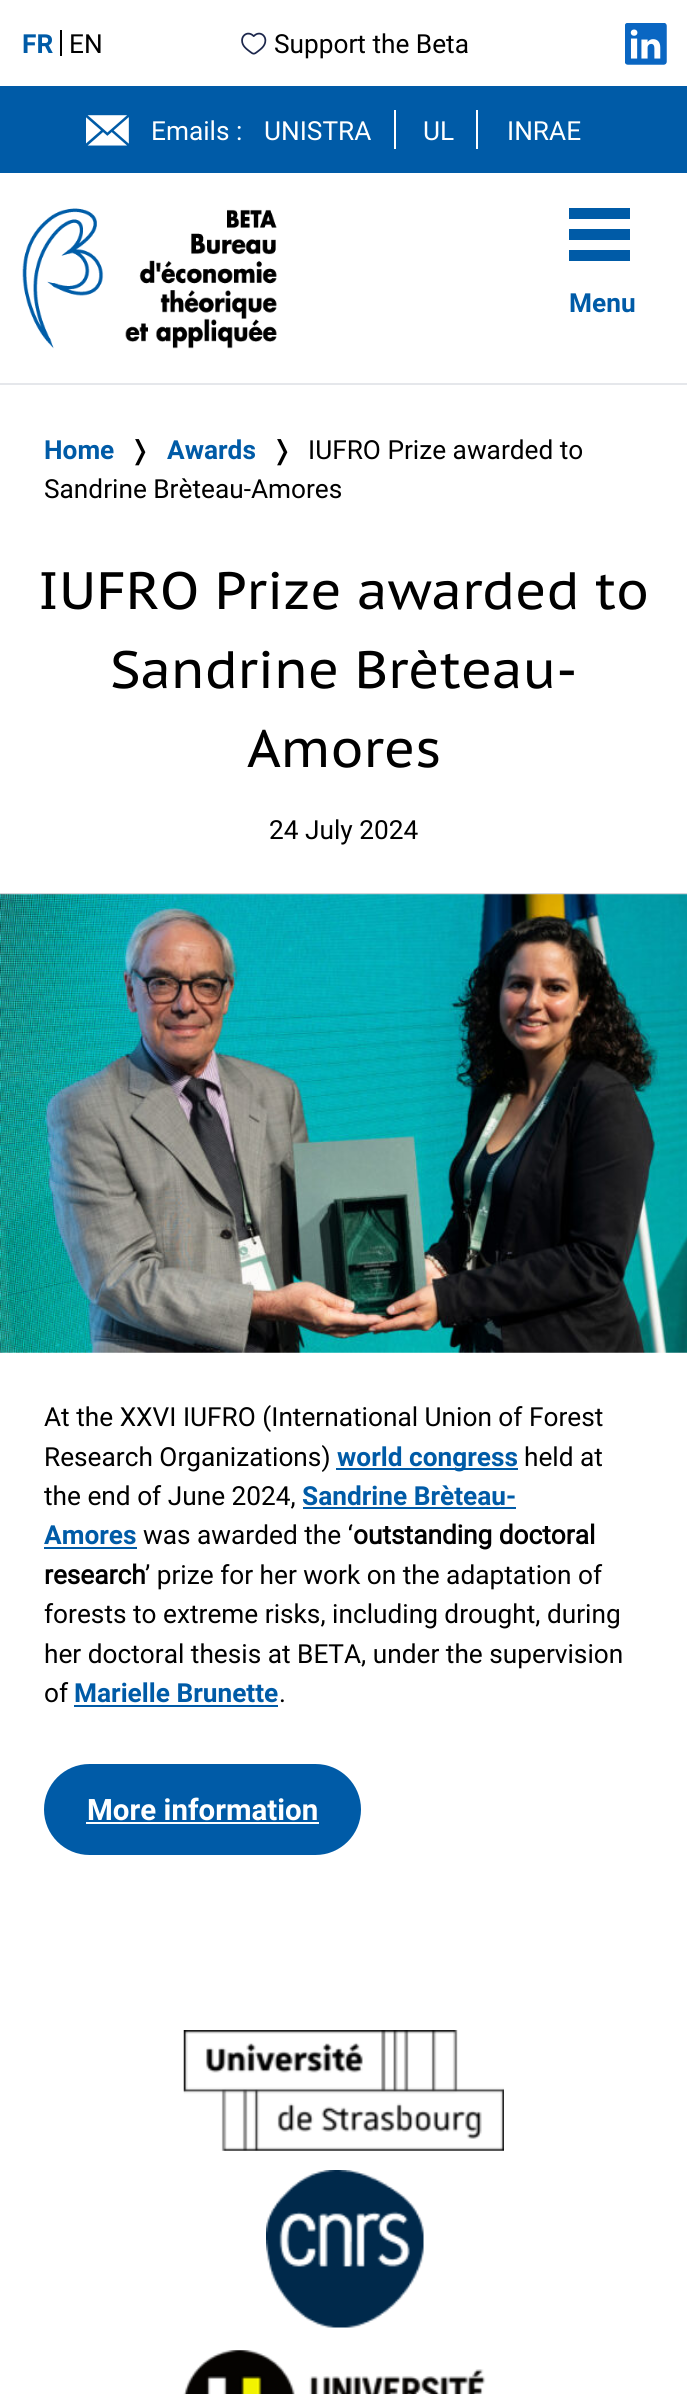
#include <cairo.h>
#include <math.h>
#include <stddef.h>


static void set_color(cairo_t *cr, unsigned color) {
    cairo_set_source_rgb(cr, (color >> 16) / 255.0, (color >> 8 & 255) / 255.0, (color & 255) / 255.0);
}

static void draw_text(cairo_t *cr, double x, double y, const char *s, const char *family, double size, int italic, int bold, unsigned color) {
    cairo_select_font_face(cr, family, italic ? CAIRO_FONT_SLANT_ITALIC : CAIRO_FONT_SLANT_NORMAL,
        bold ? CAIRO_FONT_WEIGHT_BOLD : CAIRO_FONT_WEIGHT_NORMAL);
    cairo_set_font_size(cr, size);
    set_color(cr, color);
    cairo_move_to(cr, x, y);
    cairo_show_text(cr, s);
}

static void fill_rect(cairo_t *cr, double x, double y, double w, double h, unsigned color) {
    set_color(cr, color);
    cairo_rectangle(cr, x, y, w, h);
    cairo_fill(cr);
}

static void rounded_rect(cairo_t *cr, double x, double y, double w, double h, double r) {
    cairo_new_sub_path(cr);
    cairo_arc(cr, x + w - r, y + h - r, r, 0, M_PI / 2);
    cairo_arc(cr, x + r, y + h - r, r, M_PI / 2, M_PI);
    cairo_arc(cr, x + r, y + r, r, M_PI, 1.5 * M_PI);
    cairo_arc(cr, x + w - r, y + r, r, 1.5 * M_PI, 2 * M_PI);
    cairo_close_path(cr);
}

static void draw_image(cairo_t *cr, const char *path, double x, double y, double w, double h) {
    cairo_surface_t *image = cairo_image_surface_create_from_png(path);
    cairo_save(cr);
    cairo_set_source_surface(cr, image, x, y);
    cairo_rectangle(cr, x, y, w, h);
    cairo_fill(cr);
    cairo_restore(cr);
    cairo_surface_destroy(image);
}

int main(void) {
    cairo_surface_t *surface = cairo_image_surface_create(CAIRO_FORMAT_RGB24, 687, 2394);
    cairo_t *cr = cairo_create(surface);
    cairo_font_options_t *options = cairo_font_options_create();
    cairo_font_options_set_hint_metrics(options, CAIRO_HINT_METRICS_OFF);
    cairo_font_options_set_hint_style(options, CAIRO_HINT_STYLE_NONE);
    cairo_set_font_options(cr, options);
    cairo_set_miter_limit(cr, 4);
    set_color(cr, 0xFFFFFF);
    cairo_paint(cr);
    fill_rect(cr, 0, 383, 687, 2, 0xE5E7EB);
    fill_rect(cr, 60, 30, 2, 26, 0x000000);
    draw_text(cr, 22, 53, "FR", "Roboto", 26.25, 0, 1, 0x005BA7);
    draw_text(cr, 69, 53, "EN", "Roboto", 26.25, 0, 0, 0x000000);
    draw_image(cr, "assets/img1.png", 241, 32, 26, 23);
    draw_text(cr, 274, 53, "Support the Beta", "Roboto", 26.25, 0, 0, 0x000000);
    draw_image(cr, "assets/img2.png", 625, 23, 42, 42);
    fill_rect(cr, 0, 86, 687, 87, 0x005BA7);
    draw_image(cr, "assets/img3.png", 86, 115, 43, 31);
    draw_text(cr, 151, 140, "Emails :", "Roboto", 26.25, 0, 0, 0xFFFFFF);
    fill_rect(cr, 394, 110, 2, 39, 0xFFFFFF);
    draw_text(cr, 264, 140, "UNISTRA", "Roboto", 26.25, 0, 0, 0xFFFFFF);
    fill_rect(cr, 476, 110, 2, 39, 0xFFFFFF);
    draw_text(cr, 423, 140, "UL", "Roboto", 26.25, 0, 0, 0xFFFFFF);
    draw_text(cr, 507, 140, "INRAE", "Roboto", 26.25, 0, 0, 0xFFFFFF);
    draw_image(cr, "assets/img4.png", 22, 208, 255, 141);
    fill_rect(cr, 569, 208, 61, 11, 0x005BA7);
    fill_rect(cr, 569, 229, 61, 11, 0x005BA7);
    fill_rect(cr, 569, 250, 61, 11, 0x005BA7);
    draw_text(cr, 569, 312, "Menu", "Roboto", 26.25, 0, 1, 0x005BA7);
    draw_text(cr, 44, 459, "Home", "Roboto", 26.25, 0, 1, 0x005BA7);
    draw_text(cr, 129, 459, "❭", "DejaVu Sans", 26.25, 0, 0, 0x000000);
    draw_text(cr, 167, 459, "Awards", "Roboto", 26.25, 0, 1, 0x005BA7);
    draw_text(cr, 271, 459, "❭", "DejaVu Sans", 26.25, 0, 0, 0x000000);
    draw_text(cr, 308, 459, "IUFRO Prize awarded to", "Roboto", 26.25, 0, 0, 0x000000);
    draw_text(cr, 44, 498, "Sandrine Brèteau-Amores", "Roboto", 26.25, 0, 0, 0x000000);
    fill_rect(cr, 0, 893, 687, 2, 0xD1D5DB);
    draw_text(cr, 38, 609, "IUFRO Prize awarded to", "PT Sans Caption", 52.5, 0, 0, 0x000000);
    draw_text(cr, 110, 688, "Sandrine Brèteau-", "PT Sans Caption", 52.5, 0, 0, 0x000000);
    draw_text(cr, 247, 767, "Amores", "PT Sans Caption", 52.5, 0, 0, 0x000000);
    draw_text(cr, 269, 839, "24 July 2024", "Roboto", 26.25, 0, 0, 0x000000);
    draw_image(cr, "assets/img5.png", 0, 894, 687, 459);
    draw_text(cr, 44, 1426, "At the XXVI IUFRO (International Union of Forest", "Roboto", 26.25, 0, 0, 0x000000);
    draw_text(cr, 44, 1466, "Research Organizations)", "Roboto", 26.25, 0, 0, 0x000000);
    fill_rect(cr, 336, 1468, 182, 2, 0x005BA7);
    draw_text(cr, 337, 1466, "world congress", "Roboto", 26.25, 0, 1, 0x005BA7);
    draw_text(cr, 524, 1466, "held at", "Roboto", 26.25, 0, 0, 0x000000);
    draw_text(cr, 44, 1505, "the end of June 2024,", "Roboto", 26.25, 0, 0, 0x000000);
    draw_text(cr, 302, 1505, "Sandrine Brèteau-", "Roboto", 26.25, 0, 1, 0x005BA7);
    fill_rect(cr, 303, 1507, 213, 2, 0x005BA7);
    draw_text(cr, 44, 1544, "Amores", "Roboto", 26.25, 0, 1, 0x005BA7);
    fill_rect(cr, 44, 1547, 93, 2, 0x005BA7);
    draw_text(cr, 143, 1544, "was awarded the ‘", "Roboto", 26.25, 0, 0, 0x000000);
    draw_text(cr, 353, 1544, "outstanding doctoral", "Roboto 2", 26.25, 0, 1, 0x000000);
    draw_text(cr, 44, 1584, "research", "Roboto 2", 26.25, 0, 1, 0x000000);
    draw_text(cr, 145, 1584, "’ prize for her work on the adaptation of", "Roboto", 26.25, 0, 0, 0x000000);
    draw_text(cr, 44, 1623, "forests to extreme risks, including drought, during", "Roboto", 26.25, 0, 0, 0x000000);
    draw_text(cr, 44, 1663, "her doctoral thesis at BETA, under the supervision", "Roboto", 26.25, 0, 0, 0x000000);
    draw_text(cr, 44, 1702, "of", "Roboto", 26.25, 0, 0, 0x000000);
    draw_text(cr, 74, 1702, "Marielle Brunette", "Roboto", 26.25, 0, 1, 0x005BA7);
    fill_rect(cr, 74, 1705, 204, 2, 0x005BA7);
    draw_text(cr, 279, 1702, ".", "Roboto", 26.25, 0, 0, 0x000000);
    set_color(cr, 0x005BA7);
    rounded_rect(cr, 44, 1764, 317, 91, 45.5);
    cairo_fill(cr);
    draw_text(cr, 87, 1820, "More information", "Roboto", 29.5, 0, 1, 0xFFFFFF);
    fill_rect(cr, 86, 1822, 233, 2, 0xFFFFFF);
    draw_image(cr, "assets/img6.png", 183, 2030, 321, 121);
    draw_image(cr, "assets/img7.png", 266, 2170, 158, 158);
    draw_image(cr, "assets/img8.png", 183, 2350, 303, 44);
    cairo_surface_write_to_png(surface, "output.png");
    cairo_font_options_destroy(options);
    cairo_destroy(cr);
    cairo_surface_destroy(surface);
    return 0;
}
